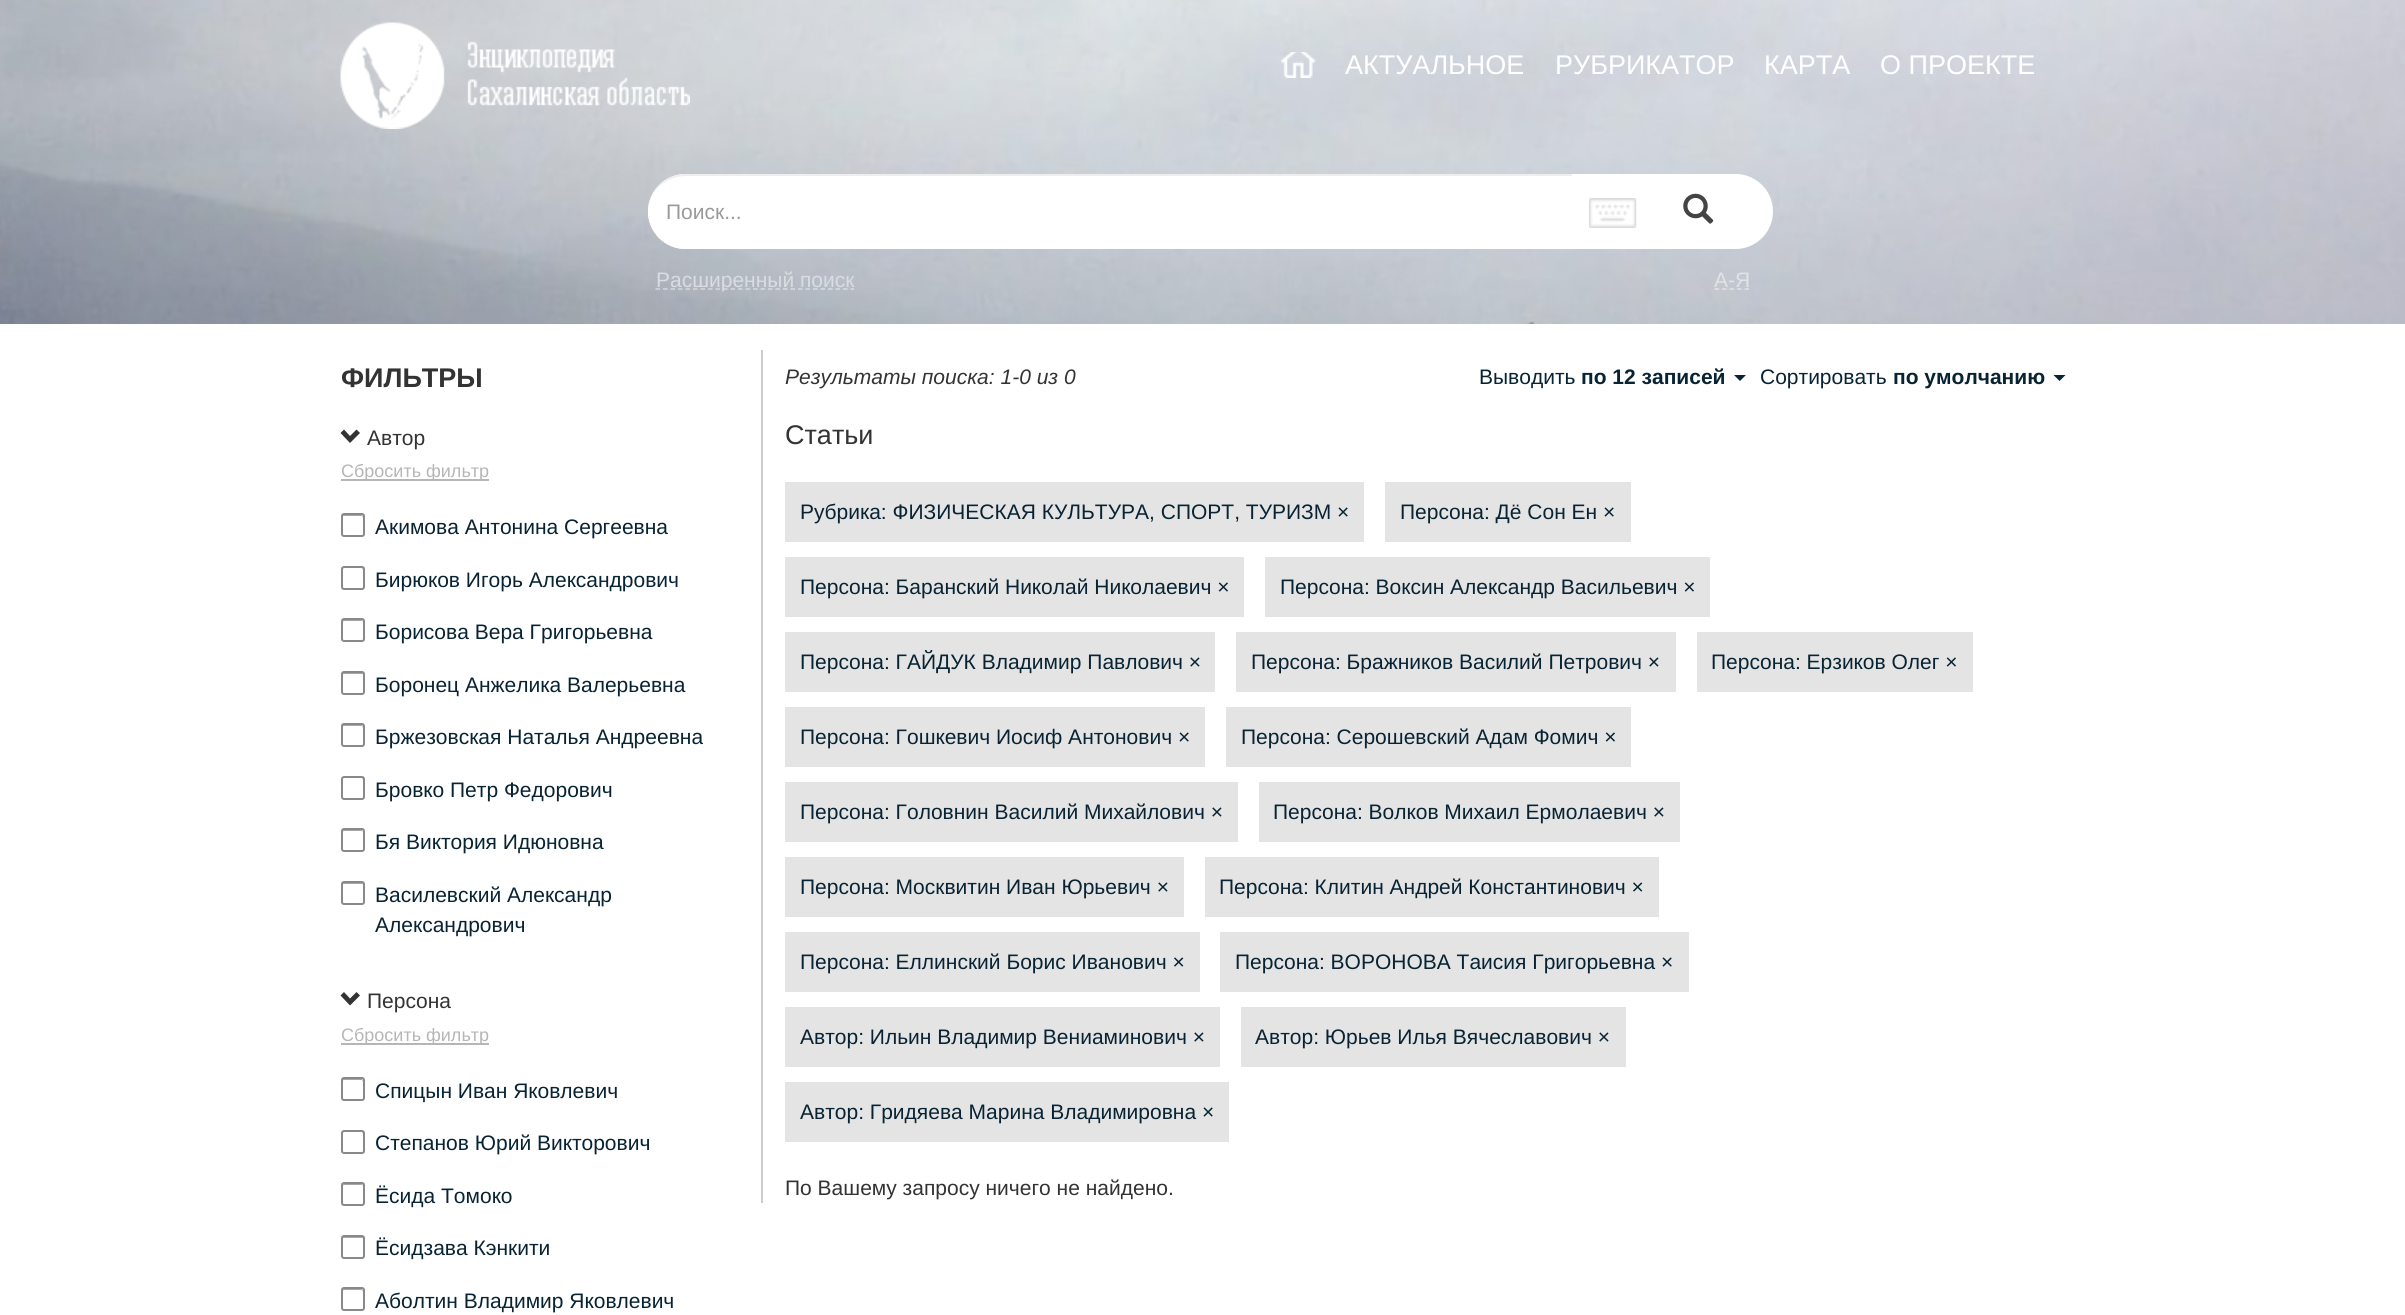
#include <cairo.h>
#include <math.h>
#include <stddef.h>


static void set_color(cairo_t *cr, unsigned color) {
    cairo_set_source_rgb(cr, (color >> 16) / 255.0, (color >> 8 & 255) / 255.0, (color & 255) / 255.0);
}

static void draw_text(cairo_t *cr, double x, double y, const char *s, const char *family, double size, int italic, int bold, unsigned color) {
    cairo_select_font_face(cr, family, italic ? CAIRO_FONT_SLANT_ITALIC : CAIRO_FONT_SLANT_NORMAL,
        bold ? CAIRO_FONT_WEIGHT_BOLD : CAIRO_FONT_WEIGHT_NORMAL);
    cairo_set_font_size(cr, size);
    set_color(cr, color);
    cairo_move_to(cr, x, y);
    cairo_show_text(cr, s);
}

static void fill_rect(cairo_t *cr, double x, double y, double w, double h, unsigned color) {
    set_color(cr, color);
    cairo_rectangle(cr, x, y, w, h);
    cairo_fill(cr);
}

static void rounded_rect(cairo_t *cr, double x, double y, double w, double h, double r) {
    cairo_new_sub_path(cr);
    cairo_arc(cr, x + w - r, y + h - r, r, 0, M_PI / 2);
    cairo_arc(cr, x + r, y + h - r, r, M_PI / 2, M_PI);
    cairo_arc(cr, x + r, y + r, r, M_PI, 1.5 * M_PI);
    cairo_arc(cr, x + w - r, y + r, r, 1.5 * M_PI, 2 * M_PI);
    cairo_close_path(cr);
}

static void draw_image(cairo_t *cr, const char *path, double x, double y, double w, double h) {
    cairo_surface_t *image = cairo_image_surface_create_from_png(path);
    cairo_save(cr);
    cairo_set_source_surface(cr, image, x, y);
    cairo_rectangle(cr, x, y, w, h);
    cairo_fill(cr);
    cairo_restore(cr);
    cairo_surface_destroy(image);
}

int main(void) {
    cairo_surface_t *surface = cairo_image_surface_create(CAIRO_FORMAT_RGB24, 2405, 1315);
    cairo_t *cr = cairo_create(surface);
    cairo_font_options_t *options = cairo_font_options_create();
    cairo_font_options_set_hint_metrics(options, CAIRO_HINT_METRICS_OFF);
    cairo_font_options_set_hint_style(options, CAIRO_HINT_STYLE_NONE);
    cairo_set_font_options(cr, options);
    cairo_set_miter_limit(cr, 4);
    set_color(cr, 0xFFFFFF);
    cairo_paint(cr);
    draw_image(cr, "assets/img1.png", 0, 0, 2405, 324);
    draw_image(cr, "assets/img2.png", 340, 22, 350, 107);
    draw_image(cr, "assets/img3.png", 1281, 52, 35, 26);
    draw_text(cr, 1345, 74, "АКТУАЛЬНОЕ", "Liberation Sans", 27, 0, 0, 0xFFFFFF);
    draw_text(cr, 1555, 74, "РУБРИКАТОР", "Liberation Sans", 27, 0, 0, 0xFFFFFF);
    draw_text(cr, 1764, 74, "КАРТА", "Liberation Sans", 27, 0, 0, 0xFFFFFF);
    draw_text(cr, 1880, 74, "О ПРОЕКТЕ", "Liberation Sans", 27, 0, 0, 0xFFFFFF);
    rounded_rect(cr, 648, 174, 1125, 75, 37.5);
    cairo_fill(cr);
    cairo_new_path(cr);
    cairo_move_to(cr, 685.5, 174);
    cairo_line_to(cr, 1572, 174);
    cairo_line_to(cr, 1572, 249);
    cairo_line_to(cr, 685.5, 249);
    cairo_curve_to(cr, 665, 249, 648, 232, 648, 211.5);
    cairo_curve_to(cr, 648, 191, 665, 174, 685.5, 174);
    cairo_close_path(cr);
    cairo_fill(cr);
    cairo_set_source_rgba(cr, 0, 0, 0, 0.07);
    cairo_new_path(cr);
    cairo_move_to(cr, 686, 176);
    cairo_line_to(cr, 1572, 176);
    cairo_line_to(cr, 1572, 174);
    cairo_line_to(cr, 686, 174);
    cairo_curve_to(cr, 665, 174, 648, 191, 648, 212);
    cairo_curve_to(cr, 648, 192, 665, 176, 686, 176);
    cairo_close_path(cr);
    cairo_fill(cr);
    draw_text(cr, 666, 219, "Поиск...", "Liberation Sans", 21, 0, 0, 0x999999);
    draw_image(cr, "assets/img4.png", 1589, 198, 48, 30);
    draw_image(cr, "assets/img5.png", 1683, 193, 31, 31);
    cairo_new_path(cr);
    cairo_move_to(cr, 655.5, 289);
    cairo_line_to(cr, 854, 289);
    cairo_set_source_rgba(cr, 1, 1, 1, 0.5);
    cairo_set_line_width(cr, 1.5);
    cairo_set_dash(cr, (double[]){4.5, 3}, 2, 0);
    cairo_stroke(cr);
    draw_text(cr, 656, 287, "Расширенный поиск", "Liberation Sans", 21, 0, 0, 0xD9DCE0);
    draw_text(cr, 1714, 287, "А-Я", "Liberation Sans", 21, 0, 0, 0xE1E3E7);
    cairo_new_path(cr);
    cairo_move_to(cr, 1714.5, 289);
    cairo_line_to(cr, 1750.5, 289);
    cairo_set_source_rgba(cr, 1, 1, 1, 0.5);
    cairo_stroke(cr);
    draw_text(cr, 341, 387, "ФИЛЬТРЫ", "Liberation Sans", 27, 0, 1, 0x333333);
    cairo_new_path(cr);
    cairo_move_to(cr, 360, 433);
    cairo_line_to(cr, 350, 443);
    cairo_line_to(cr, 340.5, 433);
    cairo_line_to(cr, 344, 429.5);
    cairo_line_to(cr, 350, 436);
    cairo_line_to(cr, 356.5, 429.5);
    cairo_close_path(cr);
    cairo_fill(cr);
    draw_text(cr, 367, 445, "Автор", "Liberation Sans", 21, 0, 0, 0x333333);
    fill_rect(cr, 341, 479, 148, 2, 0xB6B6B6);
    draw_text(cr, 341, 477, "Сбросить фильтр", "Liberation Sans", 18, 0, 0, 0xB6B6B6);
    set_color(cr, 0xA7A7A7);
    cairo_new_path(cr);
    cairo_move_to(cr, 344, 516);
    cairo_line_to(cr, 362, 516);
    cairo_line_to(cr, 363, 518);
    cairo_curve_to(cr, 363, 514.5, 362, 515, 358.5, 515);
    cairo_line_to(cr, 346.5, 515);
    cairo_curve_to(cr, 343, 515, 342, 514.5, 342, 518);
    cairo_curve_to(cr, 342, 517, 343, 516, 344, 516);
    cairo_close_path(cr);
    cairo_fill(cr);
    rounded_rect(cr, 342, 514, 22, 22, 2);
    set_color(cr, 0x898989);
    cairo_set_line_width(cr, 2);
    cairo_set_dash(cr, NULL, 0, 0);
    cairo_stroke(cr);
    draw_text(cr, 375, 534, "Акимова Антонина Сергеевна", "Liberation Sans", 21, 0, 0, 0x082333);
    set_color(cr, 0xA7A7A7);
    cairo_new_path(cr);
    cairo_move_to(cr, 344, 568);
    cairo_line_to(cr, 362, 568);
    cairo_line_to(cr, 363, 570);
    cairo_curve_to(cr, 363, 566.5, 362, 567, 358.5, 567);
    cairo_line_to(cr, 346.5, 567);
    cairo_curve_to(cr, 343, 567, 342, 566.5, 342, 570);
    cairo_curve_to(cr, 342, 569, 343, 568, 344, 568);
    cairo_close_path(cr);
    cairo_fill(cr);
    rounded_rect(cr, 342, 567, 22, 22, 2);
    set_color(cr, 0x898989);
    cairo_stroke(cr);
    draw_text(cr, 375, 587, "Бирюков Игорь Александрович", "Liberation Sans", 21, 0, 0, 0x082333);
    set_color(cr, 0xA7A7A7);
    cairo_new_path(cr);
    cairo_move_to(cr, 344, 621);
    cairo_line_to(cr, 362, 621);
    cairo_line_to(cr, 363, 622);
    cairo_curve_to(cr, 363, 619.5, 360.5, 620, 358.5, 620);
    cairo_line_to(cr, 346.5, 620);
    cairo_curve_to(cr, 344.5, 620, 342, 619.5, 342, 622);
    cairo_close_path(cr);
    cairo_fill(cr);
    rounded_rect(cr, 342, 619, 22, 22, 2);
    set_color(cr, 0x898989);
    cairo_stroke(cr);
    draw_text(cr, 375, 639, "Борисова Вера Григорьевна", "Liberation Sans", 21, 0, 0, 0x082333);
    set_color(cr, 0xA7A7A7);
    cairo_new_path(cr);
    cairo_move_to(cr, 344, 674);
    cairo_line_to(cr, 362, 674);
    cairo_curve_to(cr, 362, 674, 363, 674, 363, 675);
    cairo_curve_to(cr, 363, 671.5, 362, 672, 358.5, 672);
    cairo_line_to(cr, 346.5, 672);
    cairo_curve_to(cr, 343, 672, 342, 671.5, 342, 675);
    cairo_curve_to(cr, 342, 674, 343, 674, 344, 674);
    cairo_close_path(cr);
    cairo_fill(cr);
    rounded_rect(cr, 342, 672, 22, 22, 2);
    set_color(cr, 0x898989);
    cairo_stroke(cr);
    draw_text(cr, 375, 692, "Боронец Анжелика Валерьевна", "Liberation Sans", 21, 0, 0, 0x082333);
    set_color(cr, 0xA7A7A7);
    cairo_new_path(cr);
    cairo_move_to(cr, 344, 726);
    cairo_line_to(cr, 362, 726);
    cairo_line_to(cr, 363, 728);
    cairo_curve_to(cr, 363, 724.5, 362, 725, 358.5, 725);
    cairo_line_to(cr, 346.5, 725);
    cairo_curve_to(cr, 343, 725, 342, 724.5, 342, 728);
    cairo_curve_to(cr, 342, 727, 343, 726, 344, 726);
    cairo_close_path(cr);
    cairo_fill(cr);
    rounded_rect(cr, 342, 724, 22, 22, 2);
    set_color(cr, 0x898989);
    cairo_stroke(cr);
    draw_text(cr, 375, 744, "Бржезовская Наталья Андреевна", "Liberation Sans", 21, 0, 0, 0x082333);
    set_color(cr, 0xA7A7A7);
    cairo_new_path(cr);
    cairo_move_to(cr, 344, 778);
    cairo_line_to(cr, 362, 778);
    cairo_line_to(cr, 363, 780);
    cairo_curve_to(cr, 363, 776.5, 362, 777, 358.5, 777);
    cairo_line_to(cr, 346.5, 777);
    cairo_curve_to(cr, 343, 777, 342, 776.5, 342, 780);
    cairo_curve_to(cr, 342, 779, 343, 778, 344, 778);
    cairo_close_path(cr);
    cairo_fill(cr);
    rounded_rect(cr, 342, 777, 22, 22, 2);
    set_color(cr, 0x898989);
    cairo_stroke(cr);
    draw_text(cr, 375, 797, "Бровко Петр Федорович", "Liberation Sans", 21, 0, 0, 0x082333);
    set_color(cr, 0xA7A7A7);
    cairo_new_path(cr);
    cairo_move_to(cr, 344, 831);
    cairo_line_to(cr, 362, 831);
    cairo_line_to(cr, 363, 832);
    cairo_curve_to(cr, 363, 829.5, 360.5, 830, 358.5, 830);
    cairo_line_to(cr, 346.5, 830);
    cairo_curve_to(cr, 344.5, 830, 342, 829.5, 342, 832);
    cairo_close_path(cr);
    cairo_fill(cr);
    rounded_rect(cr, 342, 829, 22, 22, 2);
    set_color(cr, 0x898989);
    cairo_stroke(cr);
    draw_text(cr, 375, 849, "Бя Виктория Идюновна", "Liberation Sans", 21, 0, 0, 0x082333);
    set_color(cr, 0xA7A7A7);
    cairo_new_path(cr);
    cairo_move_to(cr, 344, 884);
    cairo_line_to(cr, 362, 884);
    cairo_curve_to(cr, 362, 884, 363, 884, 363, 885);
    cairo_curve_to(cr, 363, 881.5, 362, 882, 358.5, 882);
    cairo_line_to(cr, 346.5, 882);
    cairo_curve_to(cr, 343, 882, 342, 881.5, 342, 885);
    cairo_curve_to(cr, 342, 884, 343, 884, 344, 884);
    cairo_close_path(cr);
    cairo_fill(cr);
    rounded_rect(cr, 342, 882, 22, 22, 2);
    set_color(cr, 0x898989);
    cairo_stroke(cr);
    draw_text(cr, 375, 902, "Василевский Александр", "Liberation Sans", 21, 0, 0, 0x082333);
    draw_text(cr, 375, 932, "Александрович", "Liberation Sans", 21, 0, 0, 0x082333);
    set_color(cr, 0x333333);
    cairo_new_path(cr);
    cairo_move_to(cr, 360, 995.5);
    cairo_line_to(cr, 350, 1005.5);
    cairo_line_to(cr, 340.5, 995.5);
    cairo_line_to(cr, 344, 992);
    cairo_line_to(cr, 350, 998.5);
    cairo_line_to(cr, 356.5, 992);
    cairo_close_path(cr);
    cairo_fill(cr);
    draw_text(cr, 367, 1008, "Персона", "Liberation Sans", 21, 0, 0, 0x333333);
    fill_rect(cr, 341, 1043, 148, 2, 0xB6B6B6);
    draw_text(cr, 341, 1041, "Сбросить фильтр", "Liberation Sans", 18, 0, 0, 0xB6B6B6);
    set_color(cr, 0xA7A7A7);
    cairo_new_path(cr);
    cairo_move_to(cr, 344, 1080);
    cairo_line_to(cr, 362, 1080);
    cairo_line_to(cr, 363, 1082);
    cairo_curve_to(cr, 363, 1078.5, 362, 1079, 358.5, 1079);
    cairo_line_to(cr, 346.5, 1079);
    cairo_curve_to(cr, 343, 1079, 342, 1078.5, 342, 1082);
    cairo_curve_to(cr, 342, 1081, 343, 1080, 344, 1080);
    cairo_close_path(cr);
    cairo_fill(cr);
    rounded_rect(cr, 342, 1078, 22, 22, 2);
    set_color(cr, 0x898989);
    cairo_stroke(cr);
    draw_text(cr, 375, 1098, "Cпицын Иван Яковлевич", "Liberation Sans", 21, 0, 0, 0x082333);
    set_color(cr, 0xA7A7A7);
    cairo_new_path(cr);
    cairo_move_to(cr, 344, 1132);
    cairo_line_to(cr, 362, 1132);
    cairo_line_to(cr, 363, 1134);
    cairo_curve_to(cr, 363, 1130.5, 362, 1131, 358.5, 1131);
    cairo_line_to(cr, 346.5, 1131);
    cairo_curve_to(cr, 343, 1131, 342, 1130.5, 342, 1134);
    cairo_curve_to(cr, 342, 1133, 343, 1132, 344, 1132);
    cairo_close_path(cr);
    cairo_fill(cr);
    rounded_rect(cr, 342, 1131, 22, 22, 2);
    set_color(cr, 0x898989);
    cairo_stroke(cr);
    draw_text(cr, 375, 1150, "Cтепанов Юрий Викторович", "Liberation Sans", 21, 0, 0, 0x082333);
    set_color(cr, 0xA7A7A7);
    cairo_new_path(cr);
    cairo_move_to(cr, 344, 1185);
    cairo_line_to(cr, 362, 1185);
    cairo_line_to(cr, 363, 1186);
    cairo_curve_to(cr, 363, 1183.5, 360.5, 1184, 358.5, 1184);
    cairo_line_to(cr, 346.5, 1184);
    cairo_curve_to(cr, 344.5, 1184, 342, 1183.5, 342, 1186);
    cairo_close_path(cr);
    cairo_fill(cr);
    rounded_rect(cr, 342, 1183, 22, 22, 2);
    set_color(cr, 0x898989);
    cairo_stroke(cr);
    draw_text(cr, 375, 1203, "Ёсида Томоко", "Liberation Sans", 21, 0, 0, 0x082333);
    set_color(cr, 0xA7A7A7);
    cairo_new_path(cr);
    cairo_move_to(cr, 344, 1238);
    cairo_line_to(cr, 362, 1238);
    cairo_curve_to(cr, 362, 1238, 363, 1238, 363, 1239);
    cairo_curve_to(cr, 363, 1235.5, 362, 1236, 358.5, 1236);
    cairo_line_to(cr, 346.5, 1236);
    cairo_curve_to(cr, 343, 1236, 342, 1235.5, 342, 1239);
    cairo_curve_to(cr, 342, 1238, 343, 1238, 344, 1238);
    cairo_close_path(cr);
    cairo_fill(cr);
    rounded_rect(cr, 342, 1236, 22, 22, 2);
    set_color(cr, 0x898989);
    cairo_stroke(cr);
    draw_text(cr, 375, 1255, "Ёсидзава Кэнкити", "Liberation Sans", 21, 0, 0, 0x082333);
    set_color(cr, 0xA7A7A7);
    cairo_new_path(cr);
    cairo_move_to(cr, 344, 1290);
    cairo_line_to(cr, 362, 1290);
    cairo_line_to(cr, 363, 1292);
    cairo_curve_to(cr, 363, 1288.5, 362, 1289, 358.5, 1289);
    cairo_line_to(cr, 346.5, 1289);
    cairo_curve_to(cr, 343, 1289, 342, 1288.5, 342, 1292);
    cairo_curve_to(cr, 342, 1291, 343, 1290, 344, 1290);
    cairo_close_path(cr);
    cairo_fill(cr);
    rounded_rect(cr, 342, 1288, 22, 22, 2);
    set_color(cr, 0x898989);
    cairo_stroke(cr);
    draw_text(cr, 375, 1308, "Аболтин Владимир Яковлевич", "Liberation Sans", 21, 0, 0, 0x082333);
    fill_rect(cr, 761, 350, 2, 853, 0xCCCCCC);
    draw_text(cr, 785, 384, "Результаты поиска: 1-0 из 0", "Liberation Sans", 21, 1, 0, 0x333333);
    draw_text(cr, 1479, 384, "Выводить", "Liberation Sans", 21, 0, 0, 0x082333);
    draw_text(cr, 1581, 384, "по 12 записей", "Liberation Sans", 21, 0, 1, 0x082333);
    cairo_new_path(cr);
    cairo_move_to(cr, 1734, 375);
    cairo_line_to(cr, 1746, 375);
    cairo_line_to(cr, 1740, 381);
    cairo_close_path(cr);
    cairo_fill(cr);
    draw_text(cr, 1760, 384, "Сортировать", "Liberation Sans", 21, 0, 0, 0x082333);
    draw_text(cr, 1893, 384, "по умолчанию", "Liberation Sans", 21, 0, 1, 0x082333);
    cairo_new_path(cr);
    cairo_move_to(cr, 2053.5, 375);
    cairo_line_to(cr, 2065.5, 375);
    cairo_line_to(cr, 2059.5, 381);
    cairo_close_path(cr);
    cairo_fill(cr);
    draw_text(cr, 785, 444, "Статьи", "Liberation Sans", 27, 0, 0, 0x333333);
    fill_rect(cr, 785, 482, 579, 60, 0xE4E4E4);
    draw_text(cr, 800, 519, "Рубрика: ФИЗИЧЕСКАЯ КУЛЬТУРА, СПОРТ, ТУРИЗМ ×", "Liberation Sans", 21, 0, 0, 0x082333);
    fill_rect(cr, 1385, 482, 246, 60, 0xE4E4E4);
    draw_text(cr, 1400, 519, "Персона: Дё Сон Ен ×", "Liberation Sans", 21, 0, 0, 0x082333);
    fill_rect(cr, 785, 557, 459, 60, 0xE4E4E4);
    draw_text(cr, 800, 594, "Персона: Баранский Николай Николаевич ×", "Liberation Sans", 21, 0, 0, 0x082333);
    fill_rect(cr, 1265, 557, 445, 60, 0xE4E4E4);
    draw_text(cr, 1280, 594, "Персона: Воксин Александр Васильевич ×", "Liberation Sans", 21, 0, 0, 0x082333);
    fill_rect(cr, 785, 632, 430, 60, 0xE4E4E4);
    draw_text(cr, 800, 669, "Персона: ГАЙДУК Владимир Павлович ×", "Liberation Sans", 21, 0, 0, 0x082333);
    fill_rect(cr, 1236, 632, 440, 60, 0xE4E4E4);
    draw_text(cr, 1251, 669, "Персона: Бражников Василий Петрович ×", "Liberation Sans", 21, 0, 0, 0x082333);
    fill_rect(cr, 1697, 632, 276, 60, 0xE4E4E4);
    draw_text(cr, 1711, 669, "Персона: Ерзиков Олег ×", "Liberation Sans", 21, 0, 0, 0x082333);
    fill_rect(cr, 785, 707, 420, 60, 0xE4E4E4);
    draw_text(cr, 800, 744, "Персона: Гошкевич Иосиф Антонович ×", "Liberation Sans", 21, 0, 0, 0x082333);
    fill_rect(cr, 1226, 707, 405, 60, 0xE4E4E4);
    draw_text(cr, 1241, 744, "Персона: Серошевский Адам Фомич ×", "Liberation Sans", 21, 0, 0, 0x082333);
    fill_rect(cr, 785, 782, 453, 60, 0xE4E4E4);
    draw_text(cr, 800, 819, "Персона: Головнин Василий Михайлович ×", "Liberation Sans", 21, 0, 0, 0x082333);
    fill_rect(cr, 1259, 782, 421, 60, 0xE4E4E4);
    draw_text(cr, 1273, 819, "Персона: Волков Михаил Ермолаевич ×", "Liberation Sans", 21, 0, 0, 0x082333);
    fill_rect(cr, 785, 857, 399, 60, 0xE4E4E4);
    draw_text(cr, 800, 894, "Персона: Москвитин Иван Юрьевич ×", "Liberation Sans", 21, 0, 0, 0x082333);
    fill_rect(cr, 1205, 857, 454, 60, 0xE4E4E4);
    draw_text(cr, 1219, 894, "Персона: Клитин Андрей Константинович ×", "Liberation Sans", 21, 0, 0, 0x082333);
    fill_rect(cr, 785, 932, 415, 60, 0xE4E4E4);
    draw_text(cr, 800, 969, "Персона: Еллинский Борис Иванович ×", "Liberation Sans", 21, 0, 0, 0x082333);
    fill_rect(cr, 1220, 932, 469, 60, 0xE4E4E4);
    draw_text(cr, 1235, 969, "Персона: ВОРОНОВА Таисия Григорьевна ×", "Liberation Sans", 21, 0, 0, 0x082333);
    fill_rect(cr, 785, 1007, 435, 60, 0xE4E4E4);
    draw_text(cr, 800, 1044, "Автор: Ильин Владимир Вениаминович ×", "Liberation Sans", 21, 0, 0, 0x082333);
    fill_rect(cr, 1241, 1007, 385, 60, 0xE4E4E4);
    draw_text(cr, 1255, 1044, "Автор: Юрьев Илья Вячеславович ×", "Liberation Sans", 21, 0, 0, 0x082333);
    fill_rect(cr, 785, 1082, 444, 60, 0xE4E4E4);
    draw_text(cr, 800, 1119, "Автор: Гридяева Марина Владимировна ×", "Liberation Sans", 21, 0, 0, 0x082333);
    draw_text(cr, 785, 1195, "По Вашему запросу ничего не найдено.", "Liberation Sans", 21, 0, 0, 0x333333);
    cairo_surface_write_to_png(surface, "output.png");
    cairo_font_options_destroy(options);
    cairo_destroy(cr);
    cairo_surface_destroy(surface);
    return 0;
}
